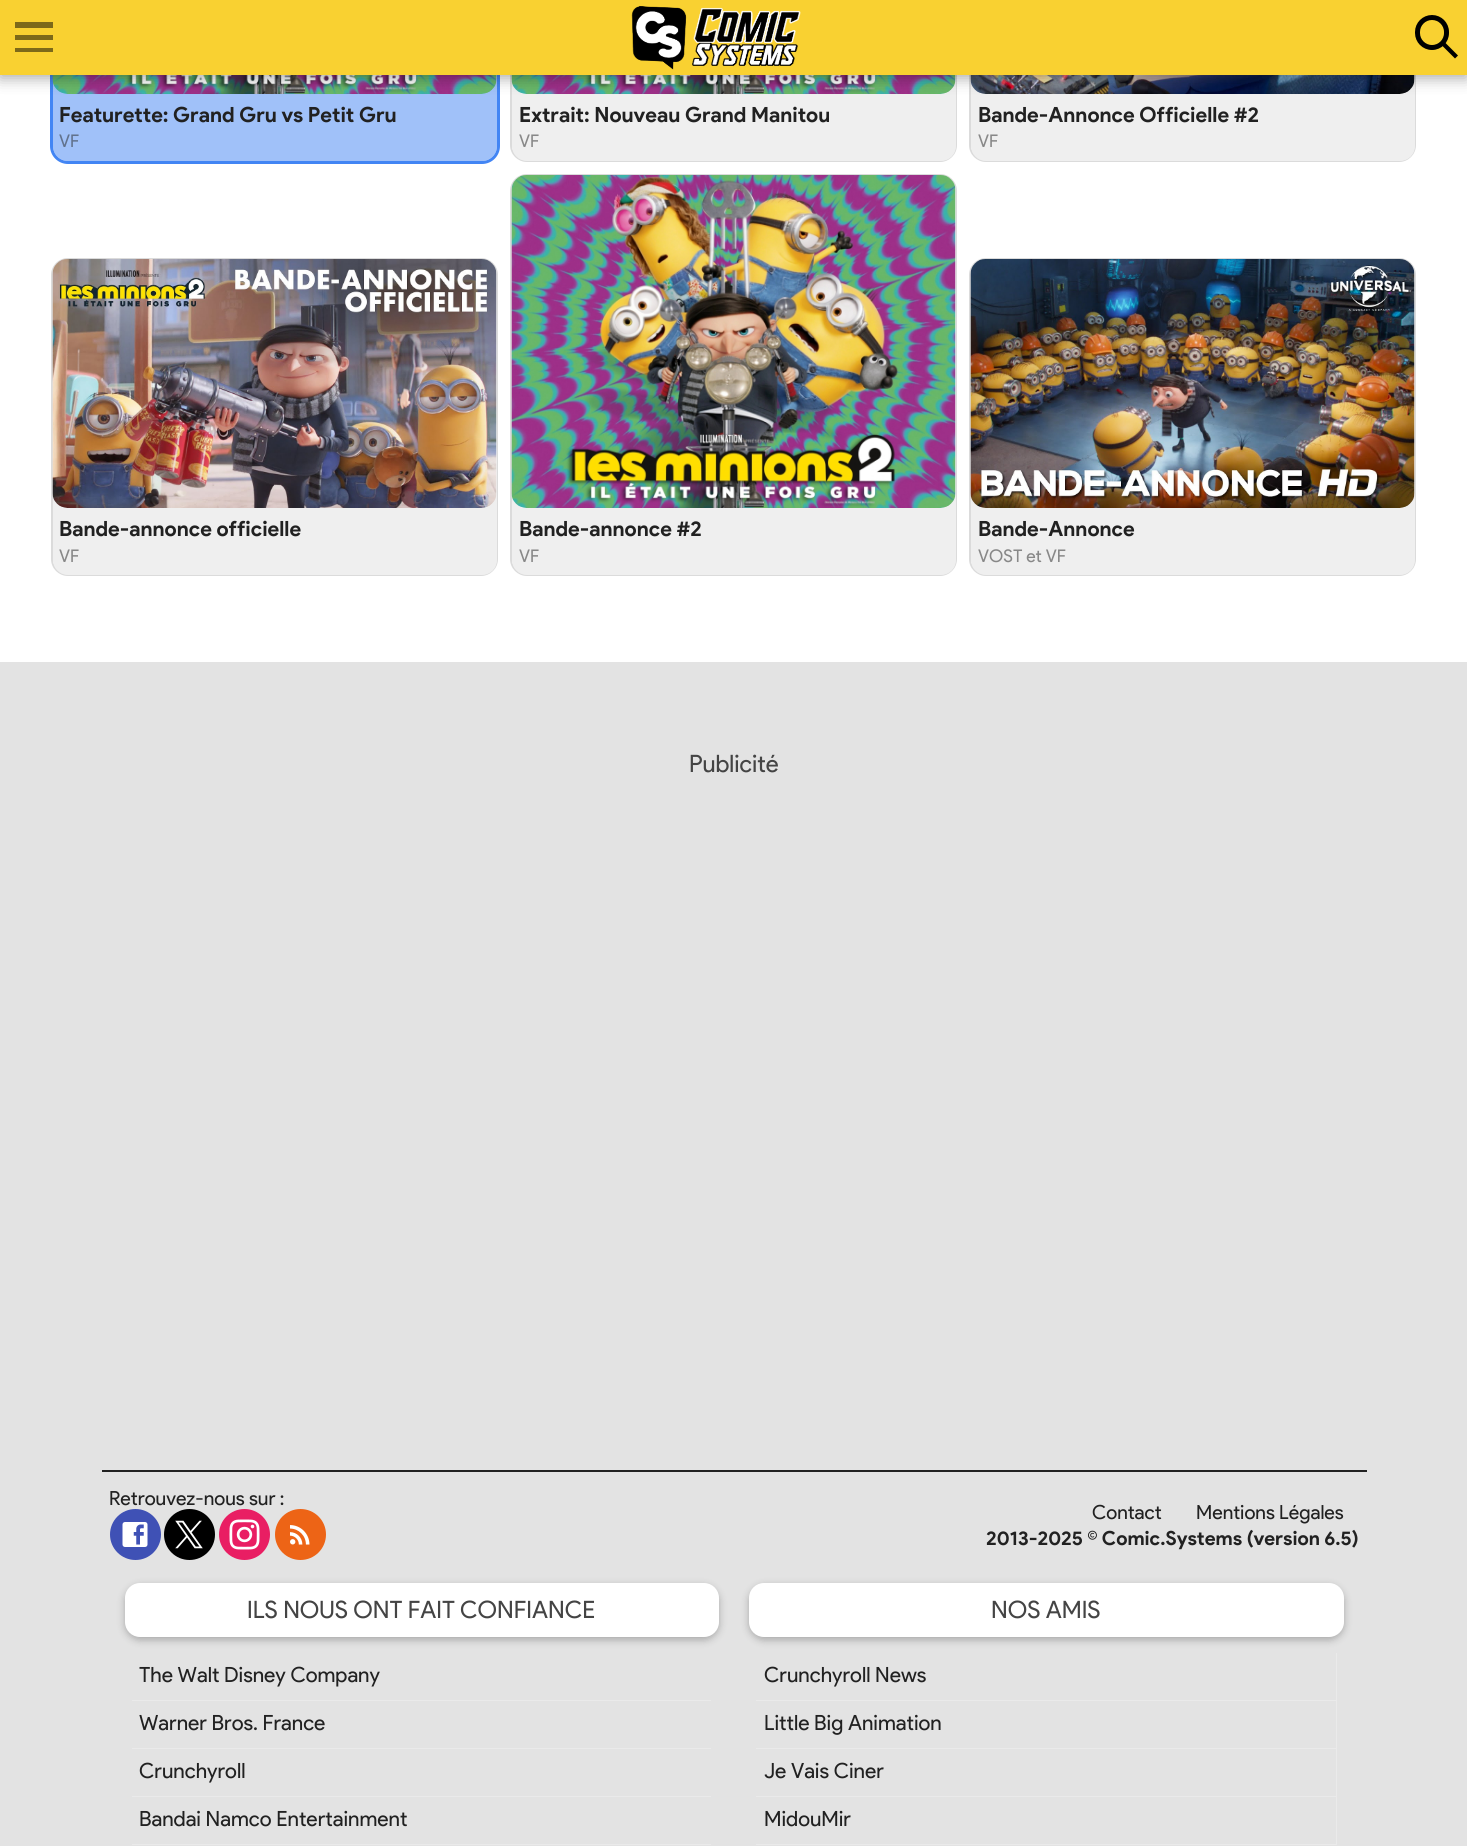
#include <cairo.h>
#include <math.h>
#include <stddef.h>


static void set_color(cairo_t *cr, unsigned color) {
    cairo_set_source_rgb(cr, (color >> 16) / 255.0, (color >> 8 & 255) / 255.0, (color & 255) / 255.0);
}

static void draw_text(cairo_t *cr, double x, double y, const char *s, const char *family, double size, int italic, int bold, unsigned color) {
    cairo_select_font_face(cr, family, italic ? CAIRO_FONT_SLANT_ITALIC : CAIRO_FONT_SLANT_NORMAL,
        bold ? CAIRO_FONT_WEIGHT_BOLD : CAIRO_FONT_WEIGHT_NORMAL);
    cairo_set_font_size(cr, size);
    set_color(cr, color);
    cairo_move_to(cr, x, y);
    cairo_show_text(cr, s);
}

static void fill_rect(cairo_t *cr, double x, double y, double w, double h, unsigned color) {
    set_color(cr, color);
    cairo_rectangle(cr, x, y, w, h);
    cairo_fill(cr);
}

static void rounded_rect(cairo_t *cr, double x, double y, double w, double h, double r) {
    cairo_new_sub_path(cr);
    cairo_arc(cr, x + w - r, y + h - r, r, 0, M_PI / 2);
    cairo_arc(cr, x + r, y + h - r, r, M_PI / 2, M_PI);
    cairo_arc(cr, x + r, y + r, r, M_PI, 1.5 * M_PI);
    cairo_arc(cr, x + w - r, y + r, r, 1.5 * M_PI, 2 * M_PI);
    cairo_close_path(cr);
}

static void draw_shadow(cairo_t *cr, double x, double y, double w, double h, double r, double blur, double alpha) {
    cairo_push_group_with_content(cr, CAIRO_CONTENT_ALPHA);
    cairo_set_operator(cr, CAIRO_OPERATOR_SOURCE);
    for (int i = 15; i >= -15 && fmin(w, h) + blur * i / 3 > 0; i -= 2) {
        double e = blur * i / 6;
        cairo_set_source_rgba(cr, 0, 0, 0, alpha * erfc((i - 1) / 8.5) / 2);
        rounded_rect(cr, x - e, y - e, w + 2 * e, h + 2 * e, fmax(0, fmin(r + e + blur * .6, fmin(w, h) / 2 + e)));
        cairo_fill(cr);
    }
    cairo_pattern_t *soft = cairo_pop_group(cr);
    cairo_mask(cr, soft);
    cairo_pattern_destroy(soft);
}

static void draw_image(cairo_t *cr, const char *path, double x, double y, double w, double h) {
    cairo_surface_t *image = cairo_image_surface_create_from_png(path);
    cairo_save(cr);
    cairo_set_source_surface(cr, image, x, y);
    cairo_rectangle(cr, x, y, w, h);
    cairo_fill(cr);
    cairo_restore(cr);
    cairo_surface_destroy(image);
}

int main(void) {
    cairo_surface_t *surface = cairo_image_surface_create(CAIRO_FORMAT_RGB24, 1467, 1846);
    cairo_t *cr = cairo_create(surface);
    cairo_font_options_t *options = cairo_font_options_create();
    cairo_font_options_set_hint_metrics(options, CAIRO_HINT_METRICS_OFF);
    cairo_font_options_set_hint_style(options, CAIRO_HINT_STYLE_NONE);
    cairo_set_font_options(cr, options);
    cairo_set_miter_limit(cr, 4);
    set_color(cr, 0xFFFFFF);
    cairo_paint(cr);
    rounded_rect(cr, 51.5, -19.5, 447, 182, 16.5);
    set_color(cr, 0x4285F4);
    cairo_set_line_width(cr, 3);
    cairo_stroke(cr);
    cairo_set_source_rgba(cr, 0.259, 0.522, 0.957, 0.5);
    rounded_rect(cr, 53, -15, 444, 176, 15);
    cairo_fill(cr);
    draw_image(cr, "assets/img2.png", 52, 75, 445, 19);
    rounded_rect(cr, 511, -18, 445, 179, 16);
    set_color(cr, 0xDBDBDB);
    cairo_set_line_width(cr, 2);
    cairo_stroke(cr);
    set_color(cr, 0xEFEFEF);
    rounded_rect(cr, 512, -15, 444, 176, 15);
    cairo_fill(cr);
    draw_image(cr, "assets/img3.png", 511, 75, 445, 19);
    rounded_rect(cr, 970, -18, 445, 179, 16);
    set_color(cr, 0xDBDBDB);
    cairo_stroke(cr);
    set_color(cr, 0xEFEFEF);
    rounded_rect(cr, 971, -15, 444, 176, 15);
    cairo_fill(cr);
    draw_image(cr, "assets/img4.png", 970, 75, 445, 19);
    set_color(cr, 0x050505);
    draw_shadow(cr, 0, 3, 1467, 75, 0, 7.5, 0.35);
    fill_rect(cr, 0, 0, 1467, 75, 0xF9D131);
    cairo_save(cr);
    cairo_rectangle(cr, 8, 8, 45, 60);
    cairo_clip(cr);
    set_color(cr, 0x7D6919);
    cairo_new_path(cr);
    cairo_move_to(cr, 15, 52);
    cairo_line_to(cr, 60, 52);
    cairo_line_to(cr, 60, 48);
    cairo_line_to(cr, 15, 48);
    cairo_close_path(cr);
    cairo_move_to(cr, 15, 40);
    cairo_line_to(cr, 60, 40);
    cairo_line_to(cr, 60, 35);
    cairo_line_to(cr, 15, 35);
    cairo_close_path(cr);
    cairo_move_to(cr, 15, 22);
    cairo_line_to(cr, 15, 28);
    cairo_line_to(cr, 60, 28);
    cairo_line_to(cr, 60, 22);
    cairo_close_path(cr);
    cairo_fill(cr);
    cairo_restore(cr);
    draw_image(cr, "assets/img1.png", 631, 6, 170, 64);
    rounded_rect(cr, 1417.5, 17.5, 29, 30, 14.5);
    set_color(cr, 0x000000);
    cairo_set_line_width(cr, 5);
    cairo_stroke(cr);
    cairo_new_path(cr);
    cairo_move_to(cr, 1444.5, 42);
    cairo_line_to(cr, 1458, 55.5);
    cairo_line_to(cr, 1455, 58.5);
    cairo_line_to(cr, 1441.5, 45);
    cairo_close_path(cr);
    cairo_fill(cr);
    draw_text(cr, 59, 122, "Featurette: Grand Gru vs Petit Gru", "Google", 21, 0, 1, 0x212121);
    draw_text(cr, 59, 147, "VF", "Google", 17.5, 0, 0, 0x61728D);
    draw_text(cr, 519, 122, "Extrait: Nouveau Grand Manitou", "Google", 21, 0, 1, 0x212121);
    draw_text(cr, 519, 147, "VF", "Google", 17.5, 0, 0, 0x888888);
    draw_text(cr, 978, 122, "Bande-Annonce Officielle #2", "Google", 21, 0, 1, 0x212121);
    draw_text(cr, 978, 147, "VF", "Google", 17.5, 0, 0, 0x888888);
    rounded_rect(cr, 52, 259, 445, 316, 16);
    set_color(cr, 0xDBDBDB);
    cairo_set_line_width(cr, 2);
    cairo_stroke(cr);
    set_color(cr, 0xEFEFEF);
    rounded_rect(cr, 53, 260, 444, 315, 15);
    cairo_fill(cr);
    draw_image(cr, "assets/img5.png", 52, 259, 445, 249);
    draw_text(cr, 59, 536, "Bande-annonce officielle", "Google", 21, 0, 1, 0x212121);
    draw_text(cr, 59, 562, "VF", "Google", 17.5, 0, 0, 0x888888);
    rounded_rect(cr, 511, 175, 445, 400, 16);
    set_color(cr, 0xDBDBDB);
    cairo_stroke(cr);
    set_color(cr, 0xEFEFEF);
    rounded_rect(cr, 512, 176, 444, 399, 15);
    cairo_fill(cr);
    draw_image(cr, "assets/img6.png", 511, 175, 445, 333);
    draw_text(cr, 519, 536, "Bande-annonce #2", "Google", 21, 0, 1, 0x212121);
    draw_text(cr, 519, 562, "VF", "Google", 17.5, 0, 0, 0x888888);
    rounded_rect(cr, 970, 259, 445, 316, 16);
    set_color(cr, 0xDBDBDB);
    cairo_stroke(cr);
    set_color(cr, 0xEFEFEF);
    rounded_rect(cr, 971, 260, 444, 315, 15);
    cairo_fill(cr);
    draw_image(cr, "assets/img7.png", 970, 259, 445, 249);
    draw_text(cr, 978, 536, "Bande-Annonce", "Google", 21, 0, 1, 0x212121);
    draw_text(cr, 978, 562, "VOST et VF", "Google", 17.5, 0, 0, 0x888888);
    fill_rect(cr, 0, 662, 1467, 1184, 0xE3E3E3);
    draw_text(cr, 689, 772, "Publicité", "Google", 24, 0, 0, 0x444444);
    fill_rect(cr, 102, 1470, 1265, 2, 0x212121);
    draw_text(cr, 109, 1505, "Retrouvez-nous sur :", "Google", 19.5, 0, 0, 0x212121);
    set_color(cr, 0x3F51B5);
    cairo_new_path(cr);
    cairo_arc(cr, 135.5, 1534.5, 25.5, 0, 2 * M_PI);
    cairo_fill(cr);
    draw_image(cr, "assets/img8.png", 122, 1522, 26, 25);
    set_color(cr, 0x000000);
    cairo_arc(cr, 189.5, 1534.5, 25.5, 0, 2 * M_PI);
    cairo_fill(cr);
    draw_image(cr, "assets/img9.png", 175, 1520, 28, 29);
    set_color(cr, 0xE91E63);
    cairo_arc(cr, 244.5, 1534.5, 25.5, 0, 2 * M_PI);
    cairo_fill(cr);
    draw_image(cr, "assets/img10.png", 229, 1519, 31, 31);
    set_color(cr, 0xED6416);
    cairo_arc(cr, 300.5, 1534.5, 25.5, 0, 2 * M_PI);
    cairo_fill(cr);
    draw_image(cr, "assets/img11.png", 290, 1525, 20, 20);
    draw_text(cr, 1092, 1519, "Contact", "Google", 19.5, 0, 0, 0x212121);
    draw_text(cr, 1196, 1519, "Mentions Légales", "Google", 19.5, 0, 0, 0x212121);
    draw_text(cr, 986, 1545, "2013-2025 © Comic.Systems (version 6.5)", "Google", 19.5, 0, 1, 0x212121);
    set_color(cr, 0x000000);
    draw_shadow(cr, 125, 1586, 594, 54, 15, 4, 0.26);
    set_color(cr, 0xFFFFFF);
    rounded_rect(cr, 125, 1583, 594, 54, 15);
    cairo_fill(cr);
    draw_text(cr, 247, 1618, "ILS NOUS ONT FAIT CONFIANCE", "Google", 24, 0, 0, 0x444444);
    fill_rect(cr, 132, 1700, 579, 1, 0xEAEAEA);
    draw_text(cr, 139, 1682, "The Walt Disney Company", "Google", 21, 0, 0, 0x212121);
    fill_rect(cr, 132, 1748, 579, 1, 0xEAEAEA);
    draw_text(cr, 139, 1730, "Warner Bros. France", "Google", 21, 0, 0, 0x212121);
    fill_rect(cr, 132, 1796, 579, 1, 0xEAEAEA);
    draw_text(cr, 139, 1778, "Crunchyroll", "Google", 21, 0, 0, 0x212121);
    fill_rect(cr, 132, 1844, 579, 1, 0xEAEAEA);
    draw_text(cr, 139, 1826, "Bandai Namco Entertainment", "Google", 21, 0, 0, 0x212121);
    set_color(cr, 0x000000);
    draw_shadow(cr, 749, 1586, 595, 54, 15, 4, 0.26);
    set_color(cr, 0xFFFFFF);
    rounded_rect(cr, 749, 1583, 595, 54, 15);
    cairo_fill(cr);
    draw_text(cr, 991, 1618, "NOS AMIS", "Google", 24, 0, 0, 0x444444);
    set_color(cr, 0xEAEAEA);
    cairo_new_path(cr);
    cairo_move_to(cr, 756, 1700);
    cairo_line_to(cr, 756, 1701);
    cairo_line_to(cr, 1337, 1701);
    cairo_line_to(cr, 1337, 1653);
    cairo_line_to(cr, 1336, 1653);
    cairo_line_to(cr, 1336, 1700);
    cairo_close_path(cr);
    cairo_fill(cr);
    draw_text(cr, 764, 1682, "Crunchyroll News", "Google", 21, 0, 0, 0x212121);
    set_color(cr, 0xEAEAEA);
    cairo_new_path(cr);
    cairo_move_to(cr, 756, 1748);
    cairo_line_to(cr, 756, 1749);
    cairo_line_to(cr, 1337, 1749);
    cairo_line_to(cr, 1337, 1701);
    cairo_line_to(cr, 1336, 1701);
    cairo_line_to(cr, 1336, 1748);
    cairo_close_path(cr);
    cairo_fill(cr);
    draw_text(cr, 764, 1730, "Little Big Animation", "Google", 21, 0, 0, 0x212121);
    set_color(cr, 0xEAEAEA);
    cairo_new_path(cr);
    cairo_move_to(cr, 756, 1796);
    cairo_line_to(cr, 756, 1797);
    cairo_line_to(cr, 1337, 1797);
    cairo_line_to(cr, 1337, 1749);
    cairo_line_to(cr, 1336, 1749);
    cairo_line_to(cr, 1336, 1796);
    cairo_close_path(cr);
    cairo_fill(cr);
    draw_text(cr, 764, 1778, "Je Vais Ciner", "Google", 21, 0, 0, 0x212121);
    set_color(cr, 0xEAEAEA);
    cairo_new_path(cr);
    cairo_move_to(cr, 756, 1844);
    cairo_line_to(cr, 756, 1845);
    cairo_line_to(cr, 1337, 1845);
    cairo_line_to(cr, 1337, 1797);
    cairo_line_to(cr, 1336, 1797);
    cairo_line_to(cr, 1336, 1844);
    cairo_close_path(cr);
    cairo_fill(cr);
    draw_text(cr, 764, 1826, "MidouMir", "Google", 21, 0, 0, 0x212121);
    cairo_surface_write_to_png(surface, "output.png");
    cairo_font_options_destroy(options);
    cairo_destroy(cr);
    cairo_surface_destroy(surface);
    return 0;
}
